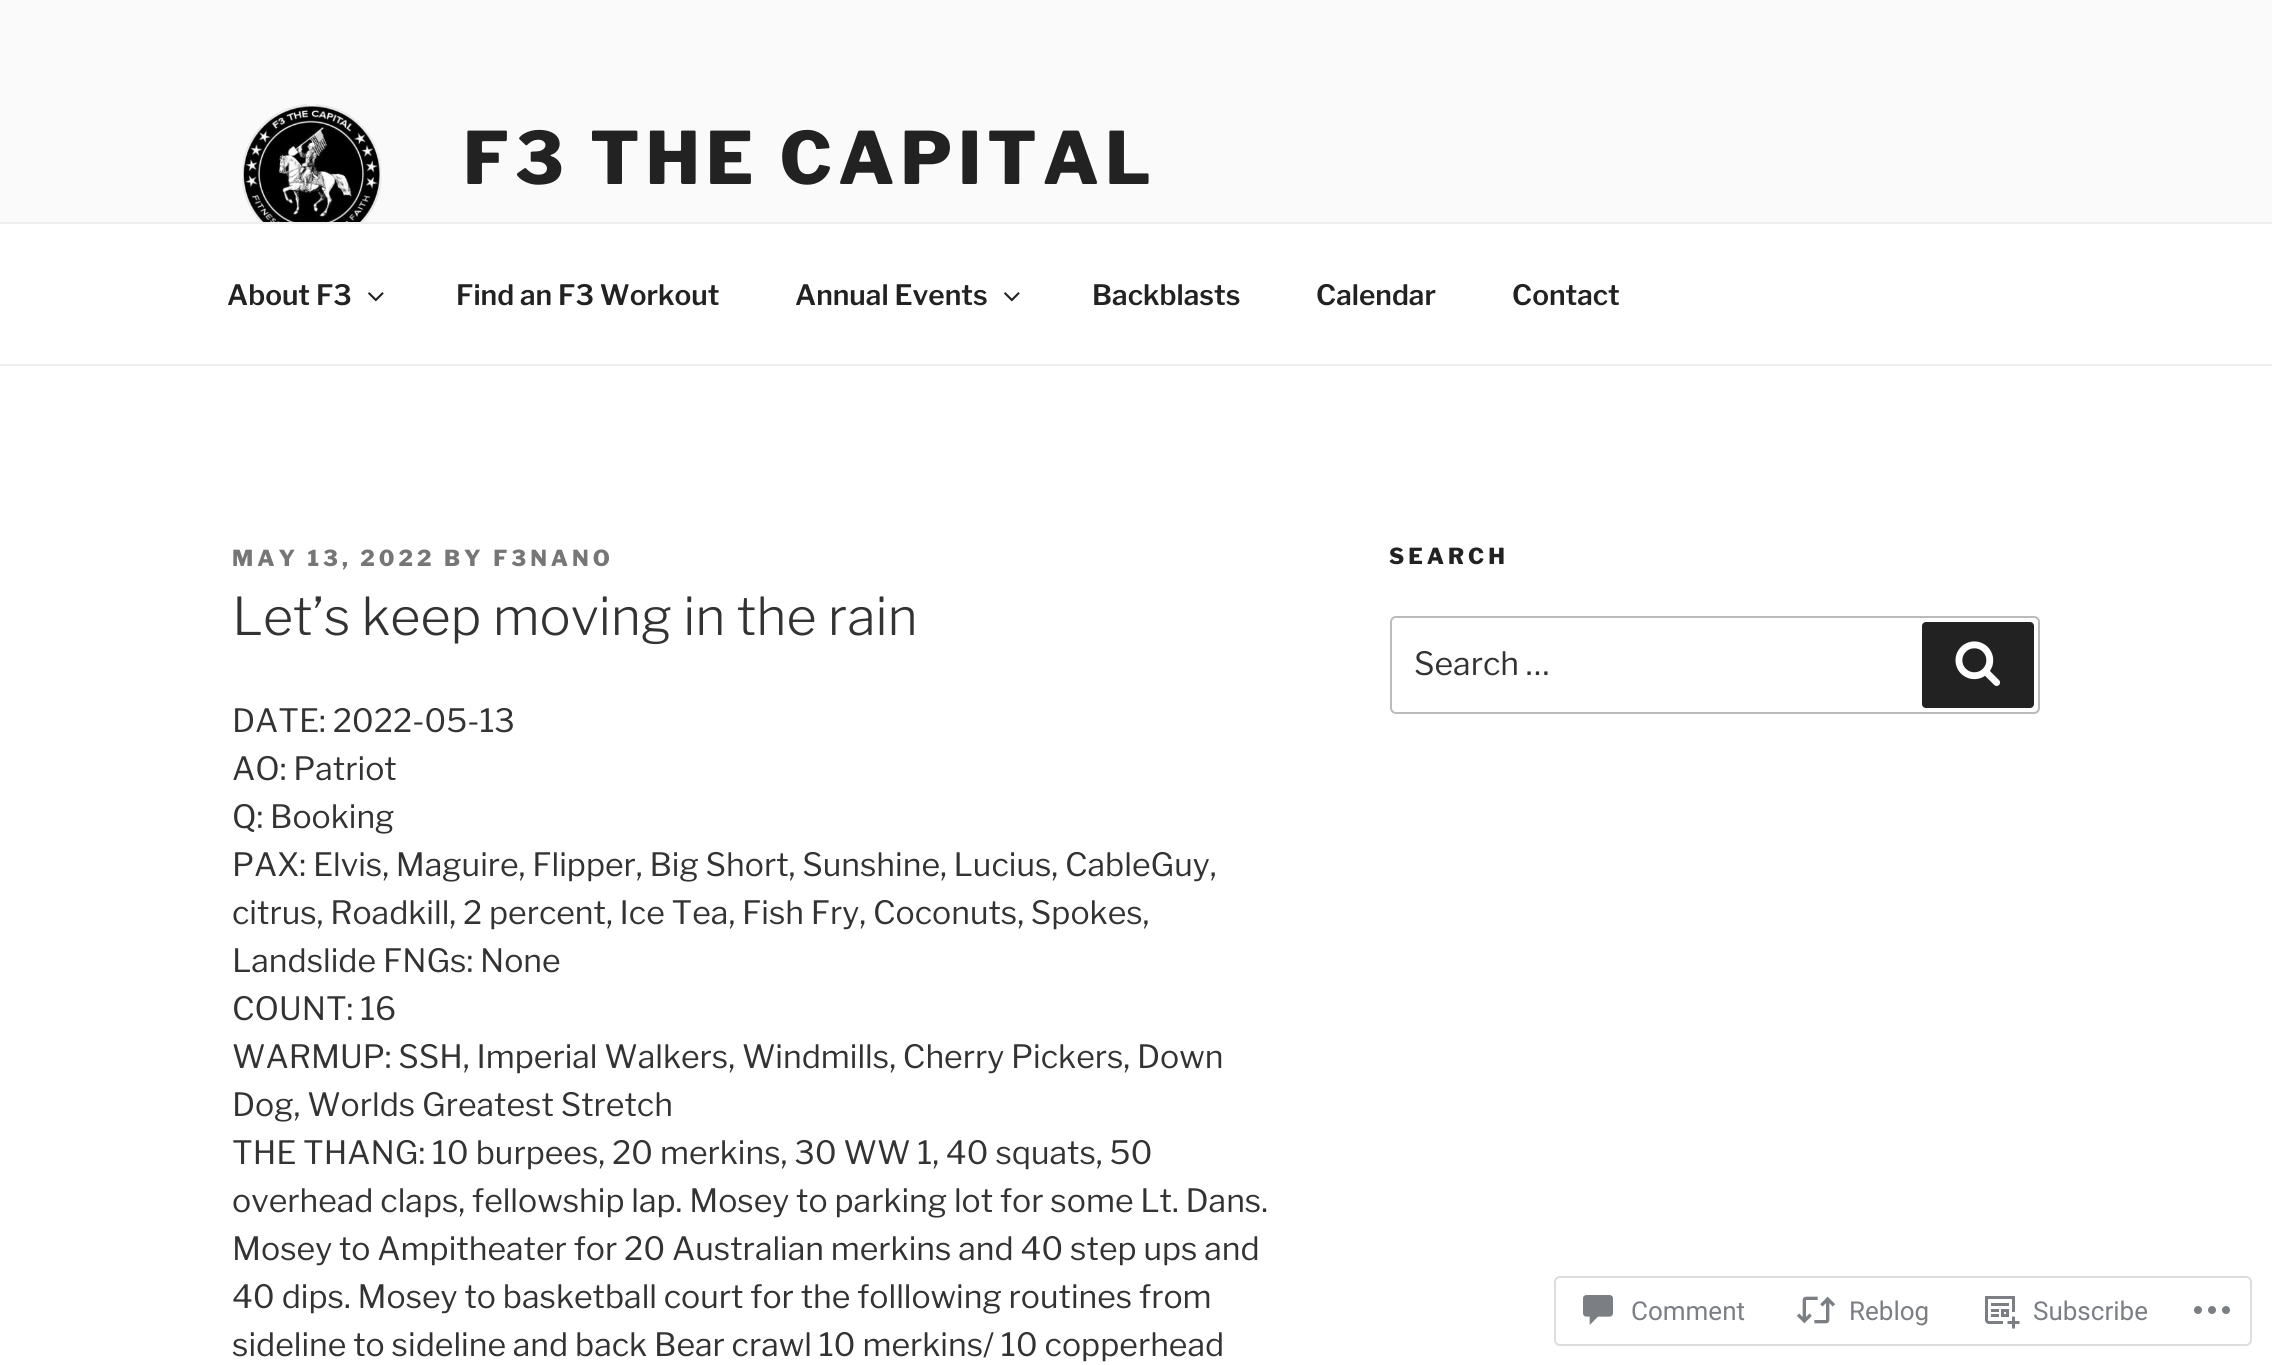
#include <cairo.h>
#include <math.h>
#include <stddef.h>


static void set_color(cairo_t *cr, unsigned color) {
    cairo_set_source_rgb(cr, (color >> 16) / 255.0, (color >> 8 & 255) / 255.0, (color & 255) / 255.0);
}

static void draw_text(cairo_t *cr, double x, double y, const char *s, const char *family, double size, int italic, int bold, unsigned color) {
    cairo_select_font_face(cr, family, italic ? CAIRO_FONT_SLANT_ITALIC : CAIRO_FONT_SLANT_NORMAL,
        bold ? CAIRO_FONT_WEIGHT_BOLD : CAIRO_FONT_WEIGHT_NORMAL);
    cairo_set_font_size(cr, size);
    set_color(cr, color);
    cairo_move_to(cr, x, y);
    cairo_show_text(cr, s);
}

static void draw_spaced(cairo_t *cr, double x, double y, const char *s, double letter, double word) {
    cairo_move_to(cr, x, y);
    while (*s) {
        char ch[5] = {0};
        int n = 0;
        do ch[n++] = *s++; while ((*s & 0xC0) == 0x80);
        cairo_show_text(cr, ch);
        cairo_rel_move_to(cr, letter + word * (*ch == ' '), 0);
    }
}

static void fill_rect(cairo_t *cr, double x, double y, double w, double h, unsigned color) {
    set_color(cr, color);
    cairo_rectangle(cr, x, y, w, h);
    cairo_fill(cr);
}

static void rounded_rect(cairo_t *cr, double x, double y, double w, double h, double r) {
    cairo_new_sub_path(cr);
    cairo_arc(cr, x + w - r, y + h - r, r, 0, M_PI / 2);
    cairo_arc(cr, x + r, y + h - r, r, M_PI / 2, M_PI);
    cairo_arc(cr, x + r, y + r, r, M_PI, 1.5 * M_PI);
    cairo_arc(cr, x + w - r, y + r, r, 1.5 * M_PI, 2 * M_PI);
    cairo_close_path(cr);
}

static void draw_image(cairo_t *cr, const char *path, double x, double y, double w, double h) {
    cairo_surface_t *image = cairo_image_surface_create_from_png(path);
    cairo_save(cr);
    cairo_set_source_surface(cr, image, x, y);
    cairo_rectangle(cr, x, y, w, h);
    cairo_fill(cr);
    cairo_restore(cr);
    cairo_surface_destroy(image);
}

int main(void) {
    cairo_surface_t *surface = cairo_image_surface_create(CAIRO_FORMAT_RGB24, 2272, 1365);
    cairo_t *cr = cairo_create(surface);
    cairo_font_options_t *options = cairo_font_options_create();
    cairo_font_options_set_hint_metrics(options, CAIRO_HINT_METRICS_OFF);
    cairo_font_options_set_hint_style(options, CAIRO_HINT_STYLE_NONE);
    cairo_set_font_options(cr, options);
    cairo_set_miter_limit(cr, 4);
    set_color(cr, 0xFFFFFF);
    cairo_paint(cr);
    fill_rect(cr, 0, 0, 2272, 222, 0xFAFAFA);
    draw_image(cr, "assets/img1.png", 242, 104, 140, 118);
    cairo_select_font_face(cr, "Libre Franklin Thin", CAIRO_FONT_SLANT_NORMAL, CAIRO_FONT_WEIGHT_NORMAL);
    cairo_set_font_size(cr, 72);
    set_color(cr, 0x222222);
    draw_spaced(cr, 463, 184, "F3 THE CAPITAL", 5.75, 0);
    fill_rect(cr, 0, 222, 2272, 2, 0xEEEEEE);
    fill_rect(cr, 0, 364, 2272, 2, 0xEEEEEE);
    draw_text(cr, 227, 305, "About F3", "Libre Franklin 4 Thin", 28, 0, 0, 0x222222);
    draw_image(cr, "assets/img2.png", 368, 292, 16, 10);
    draw_text(cr, 456, 305, "Find an F3 Workout", "Libre Franklin 4 Thin", 28, 0, 0, 0x222222);
    draw_text(cr, 795, 305, "Annual Events", "Libre Franklin 4 Thin", 28, 0, 0, 0x222222);
    draw_image(cr, "assets/img2.png", 1004, 292, 16, 10);
    draw_text(cr, 1092, 305, "Backblasts", "Libre Franklin 4 Thin", 28, 0, 0, 0x222222);
    draw_text(cr, 1316, 305, "Calendar", "Libre Franklin 4 Thin", 28, 0, 0, 0x222222);
    draw_text(cr, 1512, 305, "Contact", "Libre Franklin 4 Thin", 28, 0, 0, 0x222222);
    cairo_select_font_face(cr, "Libre Franklin Thin", CAIRO_FONT_SLANT_NORMAL, CAIRO_FONT_WEIGHT_NORMAL);
    cairo_set_font_size(cr, 22);
    set_color(cr, 0x767676);
    draw_spaced(cr, 232, 566, "MAY 13, 2022 BY F3NANO", 4, 0);
    draw_text(cr, 232, 635, "Let’s keep moving in the rain", "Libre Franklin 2 Thin", 52, 0, 0, 0x333333);
    draw_text(cr, 232, 732, "DATE: 2022-05-13", "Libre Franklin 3 Thin", 32, 0, 0, 0x333333);
    draw_text(cr, 232, 780, "AO: Patriot", "Libre Franklin 3 Thin", 32, 0, 0, 0x333333);
    draw_text(cr, 232, 828, "Q: Booking", "Libre Franklin 3 Thin", 32, 0, 0, 0x333333);
    draw_text(cr, 232, 876, "PAX: Elvis, Maguire, Flipper, Big Short, Sunshine, Lucius, CableGuy,", "Libre Franklin 3 Thin", 32, 0, 0, 0x333333);
    draw_text(cr, 232, 924, "citrus, Roadkill, 2 percent, Ice Tea, Fish Fry, Coconuts, Spokes,", "Libre Franklin 3 Thin", 32, 0, 0, 0x333333);
    draw_text(cr, 232, 972, "Landslide FNGs: None", "Libre Franklin 3 Thin", 32, 0, 0, 0x333333);
    draw_text(cr, 232, 1020, "COUNT: 16", "Libre Franklin 3 Thin", 32, 0, 0, 0x333333);
    draw_text(cr, 232, 1068, "WARMUP: SSH, Imperial Walkers, Windmills, Cherry Pickers, Down", "Libre Franklin 3 Thin", 32, 0, 0, 0x333333);
    draw_text(cr, 232, 1116, "Dog, Worlds Greatest Stretch", "Libre Franklin 3 Thin", 32, 0, 0, 0x333333);
    draw_text(cr, 232, 1164, "THE THANG: 10 burpees, 20 merkins, 30 WW 1, 40 squats, 50", "Libre Franklin 3 Thin", 32, 0, 0, 0x333333);
    draw_text(cr, 232, 1212, "overhead claps, fellowship lap. Mosey to parking lot for some Lt. Dans.", "Libre Franklin 3 Thin", 32, 0, 0, 0x333333);
    draw_text(cr, 232, 1260, "Mosey to Ampitheater for 20 Australian merkins and 40 step ups and", "Libre Franklin 3 Thin", 32, 0, 0, 0x333333);
    draw_text(cr, 232, 1308, "40 dips. Mosey to basketball court for the folllowing routines from", "Libre Franklin 3 Thin", 32, 0, 0, 0x333333);
    draw_text(cr, 232, 1356, "sideline to sideline and back Bear crawl 10 merkins/ 10 copperhead", "Libre Franklin 3 Thin", 32, 0, 0, 0x333333);
    cairo_select_font_face(cr, "Libre Franklin Thin", CAIRO_FONT_SLANT_NORMAL, CAIRO_FONT_WEIGHT_NORMAL);
    cairo_set_font_size(cr, 22);
    set_color(cr, 0x222222);
    draw_spaced(cr, 1389, 564, "SEARCH", 4, 0);
    rounded_rect(cr, 1391, 617, 648, 96, 5);
    set_color(cr, 0xBBBBBB);
    cairo_stroke(cr);
    draw_text(cr, 1414, 675, "Search …", "Libre Franklin 3 Thin", 32, 0, 0, 0x333333);
    set_color(cr, 0x222222);
    rounded_rect(cr, 1922, 622, 112, 86, 4);
    cairo_fill(cr);
    draw_image(cr, "assets/img3.png", 1955, 641, 46, 45);
    rounded_rect(cr, 1555, 1277, 696, 68, 5);
    set_color(cr, 0xDDDDDF);
    cairo_stroke(cr);
    draw_image(cr, "assets/img4.png", 1583, 1295, 30, 30);
    draw_text(cr, 1631, 1320, "Comment", "Roboto", 26, 0, 0, 0x7B7F85);
    draw_image(cr, "assets/img5.png", 1796, 1296, 40, 28);
    draw_text(cr, 1849, 1320, "Reblog", "Roboto", 26, 0, 0, 0x7B7F85);
    draw_image(cr, "assets/img6.png", 1985, 1296, 35, 33);
    draw_text(cr, 2033, 1320, "Subscribe", "Roboto", 26, 0, 0, 0x7B7F85);
    draw_image(cr, "assets/img7.png", 2194, 1306, 36, 8);
    cairo_surface_write_to_png(surface, "output.png");
    cairo_font_options_destroy(options);
    cairo_destroy(cr);
    cairo_surface_destroy(surface);
    return 0;
}
